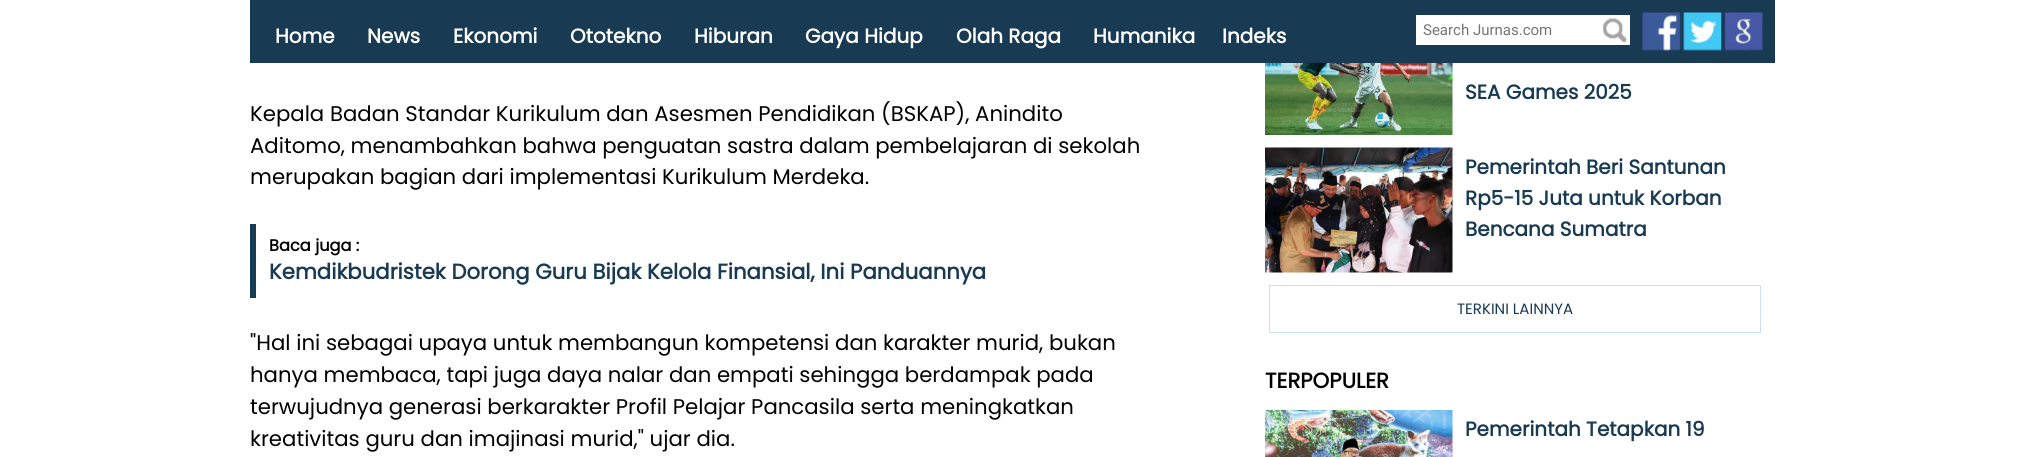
#include <cairo.h>
#include <math.h>
#include <stddef.h>


static void set_color(cairo_t *cr, unsigned color) {
    cairo_set_source_rgb(cr, (color >> 16) / 255.0, (color >> 8 & 255) / 255.0, (color & 255) / 255.0);
}

static void draw_text(cairo_t *cr, double x, double y, const char *s, const char *family, double size, int italic, int bold, unsigned color) {
    cairo_select_font_face(cr, family, italic ? CAIRO_FONT_SLANT_ITALIC : CAIRO_FONT_SLANT_NORMAL,
        bold ? CAIRO_FONT_WEIGHT_BOLD : CAIRO_FONT_WEIGHT_NORMAL);
    cairo_set_font_size(cr, size);
    set_color(cr, color);
    cairo_move_to(cr, x, y);
    cairo_show_text(cr, s);
}

static void fill_rect(cairo_t *cr, double x, double y, double w, double h, unsigned color) {
    set_color(cr, color);
    cairo_rectangle(cr, x, y, w, h);
    cairo_fill(cr);
}

static void draw_image(cairo_t *cr, const char *path, double x, double y, double w, double h) {
    cairo_surface_t *image = cairo_image_surface_create_from_png(path);
    cairo_save(cr);
    cairo_set_source_surface(cr, image, x, y);
    cairo_rectangle(cr, x, y, w, h);
    cairo_fill(cr);
    cairo_restore(cr);
    cairo_surface_destroy(image);
}

int main(void) {
    cairo_surface_t *surface = cairo_image_surface_create(CAIRO_FORMAT_RGB24, 2024, 457);
    cairo_t *cr = cairo_create(surface);
    cairo_font_options_t *options = cairo_font_options_create();
    cairo_font_options_set_hint_metrics(options, CAIRO_HINT_METRICS_OFF);
    cairo_font_options_set_hint_style(options, CAIRO_HINT_STYLE_NONE);
    cairo_set_font_options(cr, options);
    cairo_set_miter_limit(cr, 4);
    set_color(cr, 0xFFFFFF);
    cairo_paint(cr);
    fill_rect(cr, 250, 0, 1525, 63, 0x183A52);
    draw_text(cr, 275, 43, "Home", "Poppins", 20, 0, 1, 0xFFFFFF);
    draw_text(cr, 367, 43, "News", "Poppins", 20, 0, 1, 0xFFFFFF);
    draw_text(cr, 453, 43, "Ekonomi", "Poppins", 20, 0, 1, 0xFFFFFF);
    draw_text(cr, 570, 43, "Ototekno", "Poppins", 20, 0, 1, 0xFFFFFF);
    draw_text(cr, 694, 43, "Hiburan", "Poppins", 20, 0, 1, 0xFFFFFF);
    draw_text(cr, 805, 43, "Gaya Hidup", "Poppins", 20, 0, 1, 0xFFFFFF);
    draw_text(cr, 956, 43, "Olah Raga", "Poppins", 20, 0, 1, 0xFFFFFF);
    draw_text(cr, 1093, 43, "Humanika", "Poppins", 20, 0, 1, 0xFFFFFF);
    draw_text(cr, 1222, 43, "Indeks", "Poppins", 20, 0, 1, 0xFFFFFF);
    fill_rect(cr, 1416, 15, 214, 30, 0xFFFFFF);
    draw_text(cr, 1423, 35, "Search Jurnas.com", "Roboto", 15, 0, 0, 0x757575);
    draw_image(cr, "assets/img1.png", 1603, 18, 24, 25);
    draw_image(cr, "assets/img2.png", 1642, 12, 39, 39);
    draw_image(cr, "assets/img3.png", 1683, 12, 39, 39);
    draw_image(cr, "assets/img4.png", 1724, 12, 40, 39);
    draw_text(cr, 250, 121, "Kepala Badan Standar Kurikulum dan Asesmen Pendidikan (BSKAP), Anindito", "Poppins", 21.25, 0, 0, 0x000000);
    draw_text(cr, 250, 153, "Aditomo, menambahkan bahwa penguatan sastra dalam pembelajaran di sekolah", "Poppins", 21.25, 0, 0, 0x000000);
    draw_text(cr, 250, 184, "merupakan bagian dari implementasi Kurikulum Merdeka.", "Poppins", 21.25, 0, 0, 0x000000);
    fill_rect(cr, 250, 224, 6, 74, 0x183A52);
    draw_text(cr, 269, 251, "Baca juga :", "Poppins", 16.25, 0, 1, 0x000000);
    draw_text(cr, 269, 279, "Kemdikbudristek Dorong Guru Bijak Kelola Finansial, Ini Panduannya", "Poppins", 21.25, 0, 1, 0x183A52);
    draw_text(cr, 250, 350, "\"Hal ini sebagai upaya untuk membangun kompetensi dan karakter murid, bukan", "Poppins", 21.25, 0, 0, 0x000000);
    draw_text(cr, 250, 382, "hanya membaca, tapi juga daya nalar dan empati sehingga berdampak pada", "Poppins", 21.25, 0, 0, 0x000000);
    draw_text(cr, 250, 414, "terwujudnya generasi berkarakter Profil Pelajar Pancasila serta meningkatkan", "Poppins", 21.25, 0, 0, 0x000000);
    draw_text(cr, 250, 446, "kreativitas guru dan imajinasi murid,\" ujar dia.", "Poppins", 21.25, 0, 0, 0x000000);
    draw_image(cr, "assets/img5.png", 1265, 63, 188, 72);
    draw_text(cr, 1465, 99, "SEA Games 2025", "Poppins", 20, 0, 1, 0x183A52);
    draw_image(cr, "assets/img6.png", 1265, 147, 188, 126);
    draw_text(cr, 1465, 174, "Pemerintah Beri Santunan", "Poppins", 20, 0, 1, 0x183A52);
    draw_text(cr, 1465, 205, "Rp5-15 Juta untuk Korban", "Poppins", 20, 0, 1, 0x183A52);
    draw_text(cr, 1465, 236, "Bencana Sumatra", "Poppins", 20, 0, 1, 0x183A52);
    cairo_rectangle(cr, 1269.5, 285.5, 491, 47);
    set_color(cr, 0xCDDFF0);
    cairo_set_line_width(cr, 1);
    cairo_stroke(cr);
    draw_text(cr, 1457, 314, "TERKINI LAINNYA", "Poppins", 15, 0, 0, 0x183A52);
    draw_text(cr, 1265, 388, "TERPOPULER", "Poppins", 21.25, 0, 1, 0x000000);
    draw_image(cr, "assets/img7.png", 1265, 410, 188, 47);
    draw_text(cr, 1465, 436, "Pemerintah Tetapkan 19", "Poppins", 20, 0, 1, 0x183A52);
    cairo_surface_write_to_png(surface, "output.png");
    cairo_font_options_destroy(options);
    cairo_destroy(cr);
    cairo_surface_destroy(surface);
    return 0;
}
